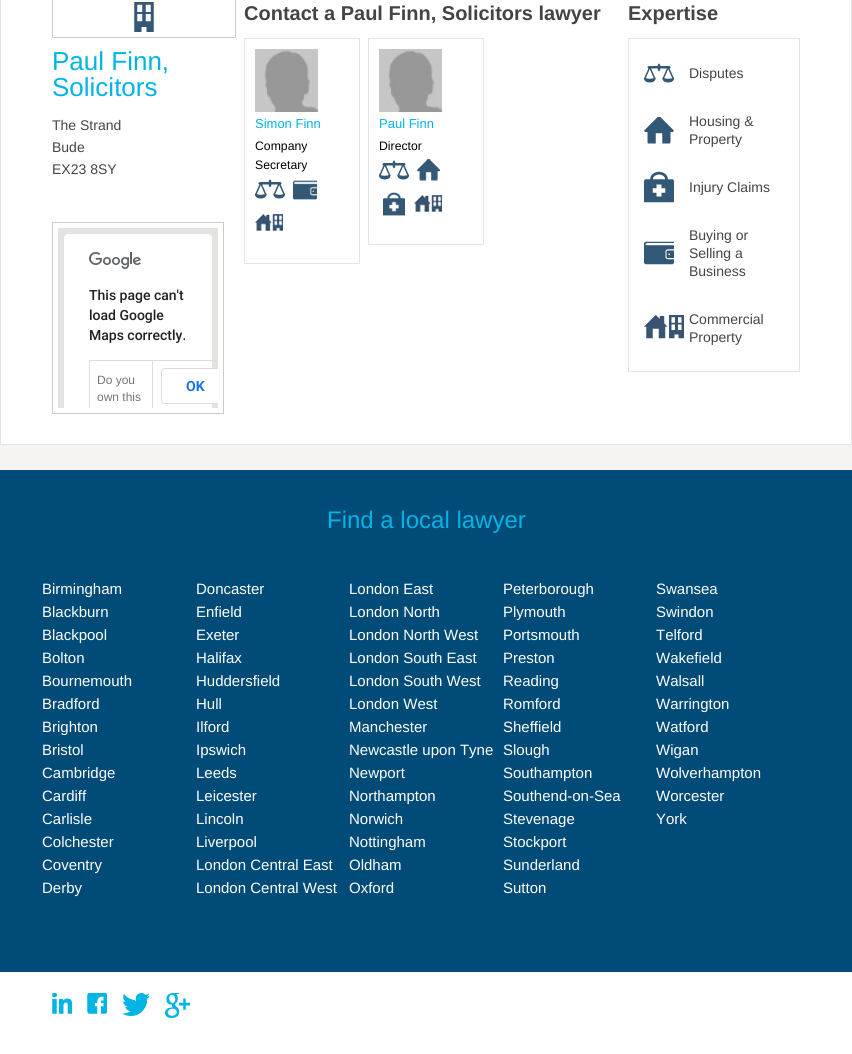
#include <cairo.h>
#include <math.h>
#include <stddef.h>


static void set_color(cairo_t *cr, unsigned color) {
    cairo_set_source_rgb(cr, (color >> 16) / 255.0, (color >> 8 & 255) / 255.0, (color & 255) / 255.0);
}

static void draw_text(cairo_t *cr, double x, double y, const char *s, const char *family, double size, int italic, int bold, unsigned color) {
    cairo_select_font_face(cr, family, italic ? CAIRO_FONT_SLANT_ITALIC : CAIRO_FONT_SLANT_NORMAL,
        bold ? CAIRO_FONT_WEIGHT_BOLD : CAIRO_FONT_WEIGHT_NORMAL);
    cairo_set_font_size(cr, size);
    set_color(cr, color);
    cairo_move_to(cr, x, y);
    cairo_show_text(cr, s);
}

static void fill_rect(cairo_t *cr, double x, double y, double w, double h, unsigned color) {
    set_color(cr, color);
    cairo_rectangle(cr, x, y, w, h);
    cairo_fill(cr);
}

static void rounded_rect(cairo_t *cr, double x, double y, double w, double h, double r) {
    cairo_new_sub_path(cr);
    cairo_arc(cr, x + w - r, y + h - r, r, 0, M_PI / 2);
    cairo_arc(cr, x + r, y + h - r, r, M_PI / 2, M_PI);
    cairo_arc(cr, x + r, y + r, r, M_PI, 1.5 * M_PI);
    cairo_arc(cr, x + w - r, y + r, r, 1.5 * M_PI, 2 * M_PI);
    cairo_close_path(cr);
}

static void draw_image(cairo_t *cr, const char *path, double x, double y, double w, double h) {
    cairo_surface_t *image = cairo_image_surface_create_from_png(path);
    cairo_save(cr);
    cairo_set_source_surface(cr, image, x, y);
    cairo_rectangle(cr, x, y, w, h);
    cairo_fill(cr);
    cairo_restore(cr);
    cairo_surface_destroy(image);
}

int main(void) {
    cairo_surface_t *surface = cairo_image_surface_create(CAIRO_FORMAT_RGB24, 852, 1054);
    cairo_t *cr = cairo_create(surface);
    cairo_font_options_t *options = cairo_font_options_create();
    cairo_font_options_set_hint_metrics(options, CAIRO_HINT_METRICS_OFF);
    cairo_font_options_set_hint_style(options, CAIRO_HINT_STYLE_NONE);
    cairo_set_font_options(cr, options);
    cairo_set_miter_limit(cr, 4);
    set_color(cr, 0xFFFFFF);
    cairo_paint(cr);
    fill_rect(cr, 0, 445, 852, 25, 0xF6F3F3);
    cairo_rectangle(cr, 0.5, -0.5, 851, 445);
    set_color(cr, 0xE5E5E5);
    cairo_set_line_width(cr, 1);
    cairo_stroke(cr);
    cairo_rectangle(cr, 52.5, -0.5, 183, 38);
    set_color(cr, 0xCBCBCB);
    cairo_stroke(cr);
    draw_image(cr, "assets/img1.png", 134, 2, 20, 30);
    draw_text(cr, 52, 70, "Paul Finn,", "Liberation Sans", 26, 0, 0, 0x00B4E5);
    draw_text(cr, 52, 96, "Solicitors", "Liberation Sans", 26, 0, 0, 0x00B4E5);
    draw_text(cr, 52, 130, "The Strand", "Liberation Sans", 14, 0, 0, 0x444444);
    draw_text(cr, 52, 152, "Bude", "Liberation Sans", 14, 0, 0, 0x444444);
    draw_text(cr, 52, 174, "EX23 8SY", "Liberation Sans", 14, 0, 0, 0x444444);
    cairo_rectangle(cr, 52.5, 222.5, 171, 191);
    set_color(cr, 0xCCCCCC);
    cairo_stroke(cr);
    fill_rect(cr, 58, 228, 160, 180, 0xE5E3DF);
    set_color(cr, 0xFFFFFF);
    cairo_new_path(cr);
    cairo_move_to(cr, 68, 233);
    cairo_line_to(cr, 208, 233);
    cairo_curve_to(cr, 211, 233, 213, 235, 213, 238);
    cairo_line_to(cr, 213, 408);
    cairo_line_to(cr, 63, 408);
    cairo_line_to(cr, 63, 238);
    cairo_curve_to(cr, 63, 235, 65, 233, 68, 233);
    cairo_close_path(cr);
    cairo_fill(cr);
    fill_rect(cr, 0, 470, 852, 502, 0x004B77);
    cairo_save(cr);
    cairo_rectangle(cr, 58, 228, 160, 180);
    cairo_clip(cr);
    rounded_rect(cr, 63.5, 233.5, 149, 244, 4.5);
    cairo_set_source_rgba(cr, 0, 0, 0, 0.12);
    cairo_stroke(cr);
    cairo_restore(cr);
    draw_image(cr, "assets/img2.png", 89, 252, 52, 17);
    draw_text(cr, 89, 300, "This page can't", "Roboto Medium", 14, 0, 0, 0x212121);
    draw_text(cr, 89, 320, "load Google", "Roboto Medium", 14, 0, 0, 0x212121);
    draw_text(cr, 89, 340, "Maps correctly.", "Roboto Medium", 14, 0, 0, 0x212121);
    fill_rect(cr, 152, 360, 66, 1, 0xDDDDDD);
    fill_rect(cr, 152, 360, 1, 48, 0xDDDDDD);
    fill_rect(cr, 89, 360, 64, 1, 0xDDDDDD);
    fill_rect(cr, 89, 360, 1, 48, 0xDDDDDD);
    draw_text(cr, 97, 384, "Do you", "Liberation Sans", 12, 0, 0, 0x757575);
    draw_text(cr, 97, 401, "own this", "Liberation Sans", 12, 0, 0, 0x757575);
    set_color(cr, 0xFFFFFF);
    cairo_new_path(cr);
    cairo_move_to(cr, 165, 368);
    cairo_line_to(cr, 218, 368);
    cairo_line_to(cr, 218, 404);
    cairo_line_to(cr, 165, 404);
    cairo_curve_to(cr, 163, 404, 161, 402, 161, 400);
    cairo_line_to(cr, 161, 372);
    cairo_curve_to(cr, 161, 370, 163, 368, 165, 368);
    cairo_close_path(cr);
    cairo_fill(cr);
    cairo_save(cr);
    cairo_rectangle(cr, 58, 228, 160, 180);
    cairo_clip(cr);
    rounded_rect(cr, 161.5, 368.5, 68, 35, 3.5);
    set_color(cr, 0xDADCE0);
    cairo_stroke(cr);
    cairo_restore(cr);
    draw_text(cr, 186, 391, "OK", "Roboto", 14, 0, 1, 0x1A73E8);
    draw_text(cr, 244, 20, "Contact a Paul Finn, Solicitors lawyer", "Liberation Sans", 20, 0, 1, 0x444444);
    cairo_rectangle(cr, 244.5, 38.5, 115, 225);
    set_color(cr, 0xE5E5E5);
    cairo_stroke(cr);
    draw_image(cr, "assets/img3.png", 255, 49, 63, 63);
    draw_text(cr, 255, 128, "Simon Finn", "Liberation Sans", 13, 0, 0, 0x00B4E5);
    draw_text(cr, 255, 150, "Company", "Liberation Sans", 12.25, 0, 0, 0x000000);
    draw_text(cr, 255, 169, "Secretary", "Liberation Sans", 12.25, 0, 0, 0x000000);
    draw_image(cr, "assets/img4.png", 255, 179, 30, 20);
    draw_image(cr, "assets/img5.png", 293, 180, 24, 20);
    draw_image(cr, "assets/img6.png", 255, 214, 28, 17);
    cairo_rectangle(cr, 368.5, 38.5, 115, 206);
    set_color(cr, 0xE5E5E5);
    cairo_stroke(cr);
    draw_image(cr, "assets/img3.png", 379, 49, 63, 63);
    draw_text(cr, 379, 128, "Paul Finn", "Liberation Sans", 13, 0, 0, 0x00B4E5);
    draw_text(cr, 379, 150, "Director", "Liberation Sans", 12.25, 0, 0, 0x000000);
    draw_image(cr, "assets/img4.png", 379, 160, 30, 20);
    draw_image(cr, "assets/img7.png", 417, 159, 23, 22);
    draw_image(cr, "assets/img8.png", 383, 192, 22, 24);
    draw_image(cr, "assets/img6.png", 414, 195, 28, 17);
    draw_text(cr, 628, 20, "Expertise", "Liberation Sans", 20, 0, 1, 0x444444);
    cairo_rectangle(cr, 628.5, 38.5, 171, 333);
    set_color(cr, 0xE5E5E5);
    cairo_stroke(cr);
    draw_image(cr, "assets/img4.png", 644, 63, 30, 20);
    draw_text(cr, 689, 78, "Disputes", "Liberation Sans", 14, 0, 0, 0x444444);
    draw_image(cr, "assets/img9.png", 644, 117, 30, 27);
    draw_text(cr, 689, 126, "Housing &", "Liberation Sans", 14, 0, 0, 0x444444);
    draw_text(cr, 689, 144, "Property", "Liberation Sans", 14, 0, 0, 0x444444);
    draw_image(cr, "assets/img10.png", 644, 171, 30, 32);
    draw_text(cr, 689, 192, "Injury Claims", "Liberation Sans", 14, 0, 0, 0x444444);
    draw_image(cr, "assets/img11.png", 644, 241, 30, 24);
    draw_text(cr, 689, 240, "Buying or", "Liberation Sans", 14, 0, 0, 0x444444);
    draw_text(cr, 689, 258, "Selling a", "Liberation Sans", 14, 0, 0, 0x444444);
    draw_text(cr, 689, 276, "Business", "Liberation Sans", 14, 0, 0, 0x444444);
    draw_image(cr, "assets/img12.png", 644, 315, 40, 24);
    draw_text(cr, 689, 324, "Commercial", "Liberation Sans", 14, 0, 0, 0x444444);
    draw_text(cr, 689, 342, "Property", "Liberation Sans", 14, 0, 0, 0x444444);
    draw_text(cr, 327, 528, "Find a local lawyer", "Liberation Sans", 24, 0, 0, 0x00B4E5);
    draw_text(cr, 42, 594, "Birmingham", "Liberation Sans", 15, 0, 0, 0xFFFFFF);
    draw_text(cr, 42, 617, "Blackburn", "Liberation Sans", 15, 0, 0, 0xFFFFFF);
    draw_text(cr, 42, 640, "Blackpool", "Liberation Sans", 15, 0, 0, 0xFFFFFF);
    draw_text(cr, 42, 663, "Bolton", "Liberation Sans", 15, 0, 0, 0xFFFFFF);
    draw_text(cr, 42, 686, "Bournemouth", "Liberation Sans", 15, 0, 0, 0xFFFFFF);
    draw_text(cr, 42, 709, "Bradford", "Liberation Sans", 15, 0, 0, 0xFFFFFF);
    draw_text(cr, 42, 732, "Brighton", "Liberation Sans", 15, 0, 0, 0xFFFFFF);
    draw_text(cr, 42, 755, "Bristol", "Liberation Sans", 15, 0, 0, 0xFFFFFF);
    draw_text(cr, 42, 778, "Cambridge", "Liberation Sans", 15, 0, 0, 0xFFFFFF);
    draw_text(cr, 42, 801, "Cardiff", "Liberation Sans", 15, 0, 0, 0xFFFFFF);
    draw_text(cr, 42, 824, "Carlisle", "Liberation Sans", 15, 0, 0, 0xFFFFFF);
    draw_text(cr, 42, 847, "Colchester", "Liberation Sans", 15, 0, 0, 0xFFFFFF);
    draw_text(cr, 42, 870, "Coventry", "Liberation Sans", 15, 0, 0, 0xFFFFFF);
    draw_text(cr, 42, 893, "Derby", "Liberation Sans", 15, 0, 0, 0xFFFFFF);
    draw_text(cr, 196, 594, "Doncaster", "Liberation Sans", 15, 0, 0, 0xFFFFFF);
    draw_text(cr, 196, 617, "Enfield", "Liberation Sans", 15, 0, 0, 0xFFFFFF);
    draw_text(cr, 196, 640, "Exeter", "Liberation Sans", 15, 0, 0, 0xFFFFFF);
    draw_text(cr, 196, 663, "Halifax", "Liberation Sans", 15, 0, 0, 0xFFFFFF);
    draw_text(cr, 196, 686, "Huddersfield", "Liberation Sans", 15, 0, 0, 0xFFFFFF);
    draw_text(cr, 196, 709, "Hull", "Liberation Sans", 15, 0, 0, 0xFFFFFF);
    draw_text(cr, 196, 732, "Ilford", "Liberation Sans", 15, 0, 0, 0xFFFFFF);
    draw_text(cr, 196, 755, "Ipswich", "Liberation Sans", 15, 0, 0, 0xFFFFFF);
    draw_text(cr, 196, 778, "Leeds", "Liberation Sans", 15, 0, 0, 0xFFFFFF);
    draw_text(cr, 196, 801, "Leicester", "Liberation Sans", 15, 0, 0, 0xFFFFFF);
    draw_text(cr, 196, 824, "Lincoln", "Liberation Sans", 15, 0, 0, 0xFFFFFF);
    draw_text(cr, 196, 847, "Liverpool", "Liberation Sans", 15, 0, 0, 0xFFFFFF);
    draw_text(cr, 196, 870, "London Central East", "Liberation Sans", 15, 0, 0, 0xFFFFFF);
    draw_text(cr, 196, 893, "London Central West", "Liberation Sans", 15, 0, 0, 0xFFFFFF);
    draw_text(cr, 349, 594, "London East", "Liberation Sans", 15, 0, 0, 0xFFFFFF);
    draw_text(cr, 349, 617, "London North", "Liberation Sans", 15, 0, 0, 0xFFFFFF);
    draw_text(cr, 349, 640, "London North West", "Liberation Sans", 15, 0, 0, 0xFFFFFF);
    draw_text(cr, 349, 663, "London South East", "Liberation Sans", 15, 0, 0, 0xFFFFFF);
    draw_text(cr, 349, 686, "London South West", "Liberation Sans", 15, 0, 0, 0xFFFFFF);
    draw_text(cr, 349, 709, "London West", "Liberation Sans", 15, 0, 0, 0xFFFFFF);
    draw_text(cr, 349, 732, "Manchester", "Liberation Sans", 15, 0, 0, 0xFFFFFF);
    draw_text(cr, 349, 755, "Newcastle upon Tyne", "Liberation Sans", 15, 0, 0, 0xFFFFFF);
    draw_text(cr, 349, 778, "Newport", "Liberation Sans", 15, 0, 0, 0xFFFFFF);
    draw_text(cr, 349, 801, "Northampton", "Liberation Sans", 15, 0, 0, 0xFFFFFF);
    draw_text(cr, 349, 824, "Norwich", "Liberation Sans", 15, 0, 0, 0xFFFFFF);
    draw_text(cr, 349, 847, "Nottingham", "Liberation Sans", 15, 0, 0, 0xFFFFFF);
    draw_text(cr, 349, 870, "Oldham", "Liberation Sans", 15, 0, 0, 0xFFFFFF);
    draw_text(cr, 349, 893, "Oxford", "Liberation Sans", 15, 0, 0, 0xFFFFFF);
    draw_text(cr, 503, 594, "Peterborough", "Liberation Sans", 15, 0, 0, 0xFFFFFF);
    draw_text(cr, 503, 617, "Plymouth", "Liberation Sans", 15, 0, 0, 0xFFFFFF);
    draw_text(cr, 503, 640, "Portsmouth", "Liberation Sans", 15, 0, 0, 0xFFFFFF);
    draw_text(cr, 503, 663, "Preston", "Liberation Sans", 15, 0, 0, 0xFFFFFF);
    draw_text(cr, 503, 686, "Reading", "Liberation Sans", 15, 0, 0, 0xFFFFFF);
    draw_text(cr, 503, 709, "Romford", "Liberation Sans", 15, 0, 0, 0xFFFFFF);
    draw_text(cr, 503, 732, "Sheffield", "Liberation Sans", 15, 0, 0, 0xFFFFFF);
    draw_text(cr, 503, 755, "Slough", "Liberation Sans", 15, 0, 0, 0xFFFFFF);
    draw_text(cr, 503, 778, "Southampton", "Liberation Sans", 15, 0, 0, 0xFFFFFF);
    draw_text(cr, 503, 801, "Southend-on-Sea", "Liberation Sans", 15, 0, 0, 0xFFFFFF);
    draw_text(cr, 503, 824, "Stevenage", "Liberation Sans", 15, 0, 0, 0xFFFFFF);
    draw_text(cr, 503, 847, "Stockport", "Liberation Sans", 15, 0, 0, 0xFFFFFF);
    draw_text(cr, 503, 870, "Sunderland", "Liberation Sans", 15, 0, 0, 0xFFFFFF);
    draw_text(cr, 503, 893, "Sutton", "Liberation Sans", 15, 0, 0, 0xFFFFFF);
    draw_text(cr, 656, 594, "Swansea", "Liberation Sans", 15, 0, 0, 0xFFFFFF);
    draw_text(cr, 656, 617, "Swindon", "Liberation Sans", 15, 0, 0, 0xFFFFFF);
    draw_text(cr, 656, 640, "Telford", "Liberation Sans", 15, 0, 0, 0xFFFFFF);
    draw_text(cr, 656, 663, "Wakefield", "Liberation Sans", 15, 0, 0, 0xFFFFFF);
    draw_text(cr, 656, 686, "Walsall", "Liberation Sans", 15, 0, 0, 0xFFFFFF);
    draw_text(cr, 656, 709, "Warrington", "Liberation Sans", 15, 0, 0, 0xFFFFFF);
    draw_text(cr, 656, 732, "Watford", "Liberation Sans", 15, 0, 0, 0xFFFFFF);
    draw_text(cr, 656, 755, "Wigan", "Liberation Sans", 15, 0, 0, 0xFFFFFF);
    draw_text(cr, 656, 778, "Wolverhampton", "Liberation Sans", 15, 0, 0, 0xFFFFFF);
    draw_text(cr, 656, 801, "Worcester", "Liberation Sans", 15, 0, 0, 0xFFFFFF);
    draw_text(cr, 656, 824, "York", "Liberation Sans", 15, 0, 0, 0xFFFFFF);
    draw_image(cr, "assets/img13.png", 52, 993, 20, 21);
    draw_image(cr, "assets/img14.png", 87, 993, 20, 21);
    draw_image(cr, "assets/img15.png", 122, 993, 28, 23);
    draw_image(cr, "assets/img16.png", 165, 993, 25, 25);
    cairo_surface_write_to_png(surface, "output.png");
    cairo_font_options_destroy(options);
    cairo_destroy(cr);
    cairo_surface_destroy(surface);
    return 0;
}
